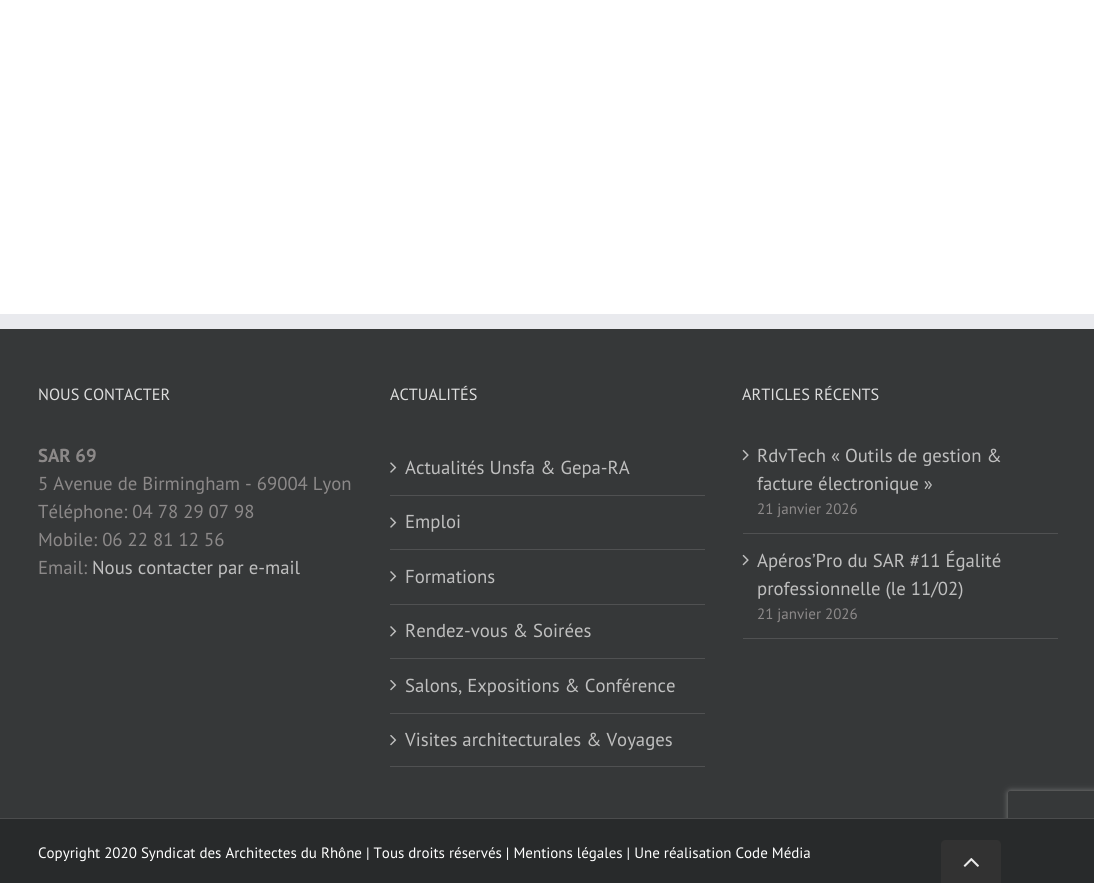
#include <cairo.h>
#include <math.h>
#include <stddef.h>


static void set_color(cairo_t *cr, unsigned color) {
    cairo_set_source_rgb(cr, (color >> 16) / 255.0, (color >> 8 & 255) / 255.0, (color & 255) / 255.0);
}

static void draw_text(cairo_t *cr, double x, double y, const char *s, const char *family, double size, int italic, int bold, unsigned color) {
    cairo_select_font_face(cr, family, italic ? CAIRO_FONT_SLANT_ITALIC : CAIRO_FONT_SLANT_NORMAL,
        bold ? CAIRO_FONT_WEIGHT_BOLD : CAIRO_FONT_WEIGHT_NORMAL);
    cairo_set_font_size(cr, size);
    set_color(cr, color);
    cairo_move_to(cr, x, y);
    cairo_show_text(cr, s);
}

static void fill_rect(cairo_t *cr, double x, double y, double w, double h, unsigned color) {
    set_color(cr, color);
    cairo_rectangle(cr, x, y, w, h);
    cairo_fill(cr);
}

static void rounded_rect(cairo_t *cr, double x, double y, double w, double h, double r) {
    cairo_new_sub_path(cr);
    cairo_arc(cr, x + w - r, y + h - r, r, 0, M_PI / 2);
    cairo_arc(cr, x + r, y + h - r, r, M_PI / 2, M_PI);
    cairo_arc(cr, x + r, y + r, r, M_PI, 1.5 * M_PI);
    cairo_arc(cr, x + w - r, y + r, r, 1.5 * M_PI, 2 * M_PI);
    cairo_close_path(cr);
}

static void draw_shadow(cairo_t *cr, double x, double y, double w, double h, double r, double blur, double alpha) {
    cairo_push_group_with_content(cr, CAIRO_CONTENT_ALPHA);
    cairo_set_operator(cr, CAIRO_OPERATOR_SOURCE);
    for (int i = 15; i >= -15 && fmin(w, h) + blur * i / 3 > 0; i -= 2) {
        double e = blur * i / 6;
        cairo_set_source_rgba(cr, 0, 0, 0, alpha * erfc((i - 1) / 8.5) / 2);
        rounded_rect(cr, x - e, y - e, w + 2 * e, h + 2 * e, fmax(0, fmin(r + e + blur * .6, fmin(w, h) / 2 + e)));
        cairo_fill(cr);
    }
    cairo_pattern_t *soft = cairo_pop_group(cr);
    cairo_mask(cr, soft);
    cairo_pattern_destroy(soft);
}

static void draw_image(cairo_t *cr, const char *path, double x, double y, double w, double h) {
    cairo_surface_t *image = cairo_image_surface_create_from_png(path);
    cairo_save(cr);
    cairo_set_source_surface(cr, image, x, y);
    cairo_rectangle(cr, x, y, w, h);
    cairo_fill(cr);
    cairo_restore(cr);
    cairo_surface_destroy(image);
}

int main(void) {
    cairo_surface_t *surface = cairo_image_surface_create(CAIRO_FORMAT_RGB24, 1094, 883);
    cairo_t *cr = cairo_create(surface);
    cairo_font_options_t *options = cairo_font_options_create();
    cairo_font_options_set_hint_metrics(options, CAIRO_HINT_METRICS_OFF);
    cairo_font_options_set_hint_style(options, CAIRO_HINT_STYLE_NONE);
    cairo_set_font_options(cr, options);
    cairo_set_miter_limit(cr, 4);
    set_color(cr, 0xFFFFFF);
    cairo_paint(cr);
    fill_rect(cr, 0, 329, 1094, 489, 0x363839);
    fill_rect(cr, 0, 314, 1094, 15, 0xE9EAEE);
    draw_text(cr, 38, 400, "NOUS CONTACTER", "PT Sans", 16.25, 0, 0, 0xDDDDDD);
    draw_text(cr, 38, 462, "SAR 69", "PT Sans", 18.75, 0, 1, 0x8C8989);
    draw_text(cr, 38, 490, "5 Avenue de Birmingham - 69004 Lyon", "PT Sans", 18.75, 0, 0, 0x8C8989);
    draw_text(cr, 38, 518, "Téléphone: 04 78 29 07 98", "PT Sans", 18.75, 0, 0, 0x8C8989);
    draw_text(cr, 38, 546, "Mobile: 06 22 81 12 56", "PT Sans", 18.75, 0, 0, 0x8C8989);
    draw_text(cr, 38, 574, "Email:", "PT Sans", 18.75, 0, 0, 0x8C8989);
    draw_text(cr, 92, 574, "Nous contacter par e-mail", "PT Sans", 18.75, 0, 0, 0xBFBFBF);
    draw_text(cr, 390, 400, "ACTUALITÉS", "PT Sans", 16.25, 0, 0, 0xDDDDDD);
    fill_rect(cr, 390, 495, 315, 1, 0x505152);
    draw_image(cr, "assets/img1.png", 390, 462, 7, 11);
    draw_text(cr, 405, 474, "Actualités Unsfa & Gepa-RA", "PT Sans", 18.75, 0, 0, 0xBFBFBF);
    fill_rect(cr, 390, 549, 315, 1, 0x505152);
    draw_image(cr, "assets/img1.png", 390, 517, 7, 11);
    draw_text(cr, 405, 528, "Emploi", "PT Sans", 18.75, 0, 0, 0xBFBFBF);
    fill_rect(cr, 390, 604, 315, 1, 0x505152);
    draw_image(cr, "assets/img2.png", 390, 571, 7, 11);
    draw_text(cr, 405, 583, "Formations", "PT Sans", 18.75, 0, 0, 0xBFBFBF);
    fill_rect(cr, 390, 658, 315, 1, 0x505152);
    draw_image(cr, "assets/img2.png", 390, 626, 7, 11);
    draw_text(cr, 405, 637, "Rendez-vous & Soirées", "PT Sans", 18.75, 0, 0, 0xBFBFBF);
    fill_rect(cr, 390, 713, 315, 1, 0x505152);
    draw_image(cr, "assets/img3.png", 390, 680, 7, 11);
    draw_text(cr, 405, 692, "Salons, Expositions & Conférence", "PT Sans", 18.75, 0, 0, 0xBFBFBF);
    fill_rect(cr, 390, 766, 315, 1, 0x505152);
    draw_image(cr, "assets/img3.png", 390, 735, 7, 11);
    draw_text(cr, 405, 746, "Visites architecturales & Voyages", "PT Sans", 18.75, 0, 0, 0xBFBFBF);
    draw_text(cr, 742, 400, "ARTICLES RÉCENTS", "PT Sans", 16.25, 0, 0, 0xDDDDDD);
    fill_rect(cr, 743, 533, 315, 1, 0x505152);
    draw_image(cr, "assets/img4.png", 742, 449, 7, 12);
    draw_text(cr, 757, 462, "RdvTech « Outils de gestion &", "PT Sans", 18.75, 0, 0, 0xBFBFBF);
    draw_text(cr, 757, 490, "facture électronique »", "PT Sans", 18.75, 0, 0, 0xBFBFBF);
    draw_text(cr, 757, 514, "21 janvier 2026", "PT Sans", 15, 0, 0, 0x8C8989);
    fill_rect(cr, 743, 638, 315, 1, 0x505152);
    draw_image(cr, "assets/img4.png", 742, 554, 7, 12);
    draw_text(cr, 757, 567, "Apéros’Pro du SAR #11 Égalité", "PT Sans", 18.75, 0, 0, 0xBFBFBF);
    draw_text(cr, 757, 595, "professionnelle (le 11/02)", "PT Sans", 18.75, 0, 0, 0xBFBFBF);
    draw_text(cr, 757, 619, "21 janvier 2026", "PT Sans", 15, 0, 0, 0x8C8989);
    cairo_save(cr);
    cairo_set_fill_rule(cr, CAIRO_FILL_RULE_EVEN_ODD);
    cairo_new_path(cr);
    cairo_move_to(cr, 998, 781);
    cairo_line_to(cr, 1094, 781);
    cairo_line_to(cr, 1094, 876);
    cairo_line_to(cr, 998, 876);
    cairo_close_path(cr);
    cairo_move_to(cr, 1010.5, 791);
    cairo_line_to(cr, 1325.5, 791);
    cairo_curve_to(cr, 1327, 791, 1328, 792, 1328, 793.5);
    cairo_line_to(cr, 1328, 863.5);
    cairo_curve_to(cr, 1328, 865, 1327, 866, 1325.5, 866);
    cairo_line_to(cr, 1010.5, 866);
    cairo_curve_to(cr, 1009, 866, 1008, 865, 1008, 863.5);
    cairo_line_to(cr, 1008, 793.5);
    cairo_curve_to(cr, 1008, 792, 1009, 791, 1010.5, 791);
    cairo_close_path(cr);
    cairo_clip(cr);
    set_color(cr, 0x808080);
    draw_shadow(cr, 1008, 791, 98, 75, 2.5, 3, 1);
    cairo_restore(cr);
    fill_rect(cr, 0, 819, 1094, 64, 0x282A2B);
    fill_rect(cr, 0, 818, 1094, 1, 0x4B4C4D);
    draw_text(cr, 38, 858, "Copyright 2020 Syndicat des Architectes du Rhône | Tous droits réservés | Mentions légales | Une réalisation Code Média", "PT Sans", 15, 0, 0, 0xFFFFFF);
    set_color(cr, 0x323232);
    cairo_new_path(cr);
    cairo_move_to(cr, 946, 840);
    cairo_line_to(cr, 996, 840);
    cairo_curve_to(cr, 999, 840, 1001, 842, 1001, 845);
    cairo_line_to(cr, 1001, 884);
    cairo_line_to(cr, 941, 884);
    cairo_line_to(cr, 941, 845);
    cairo_curve_to(cr, 941, 842, 943, 840, 946, 840);
    cairo_close_path(cr);
    cairo_fill(cr);
    draw_image(cr, "assets/img5.png", 963, 858, 16, 9);
    cairo_surface_write_to_png(surface, "output.png");
    cairo_font_options_destroy(options);
    cairo_destroy(cr);
    cairo_surface_destroy(surface);
    return 0;
}
